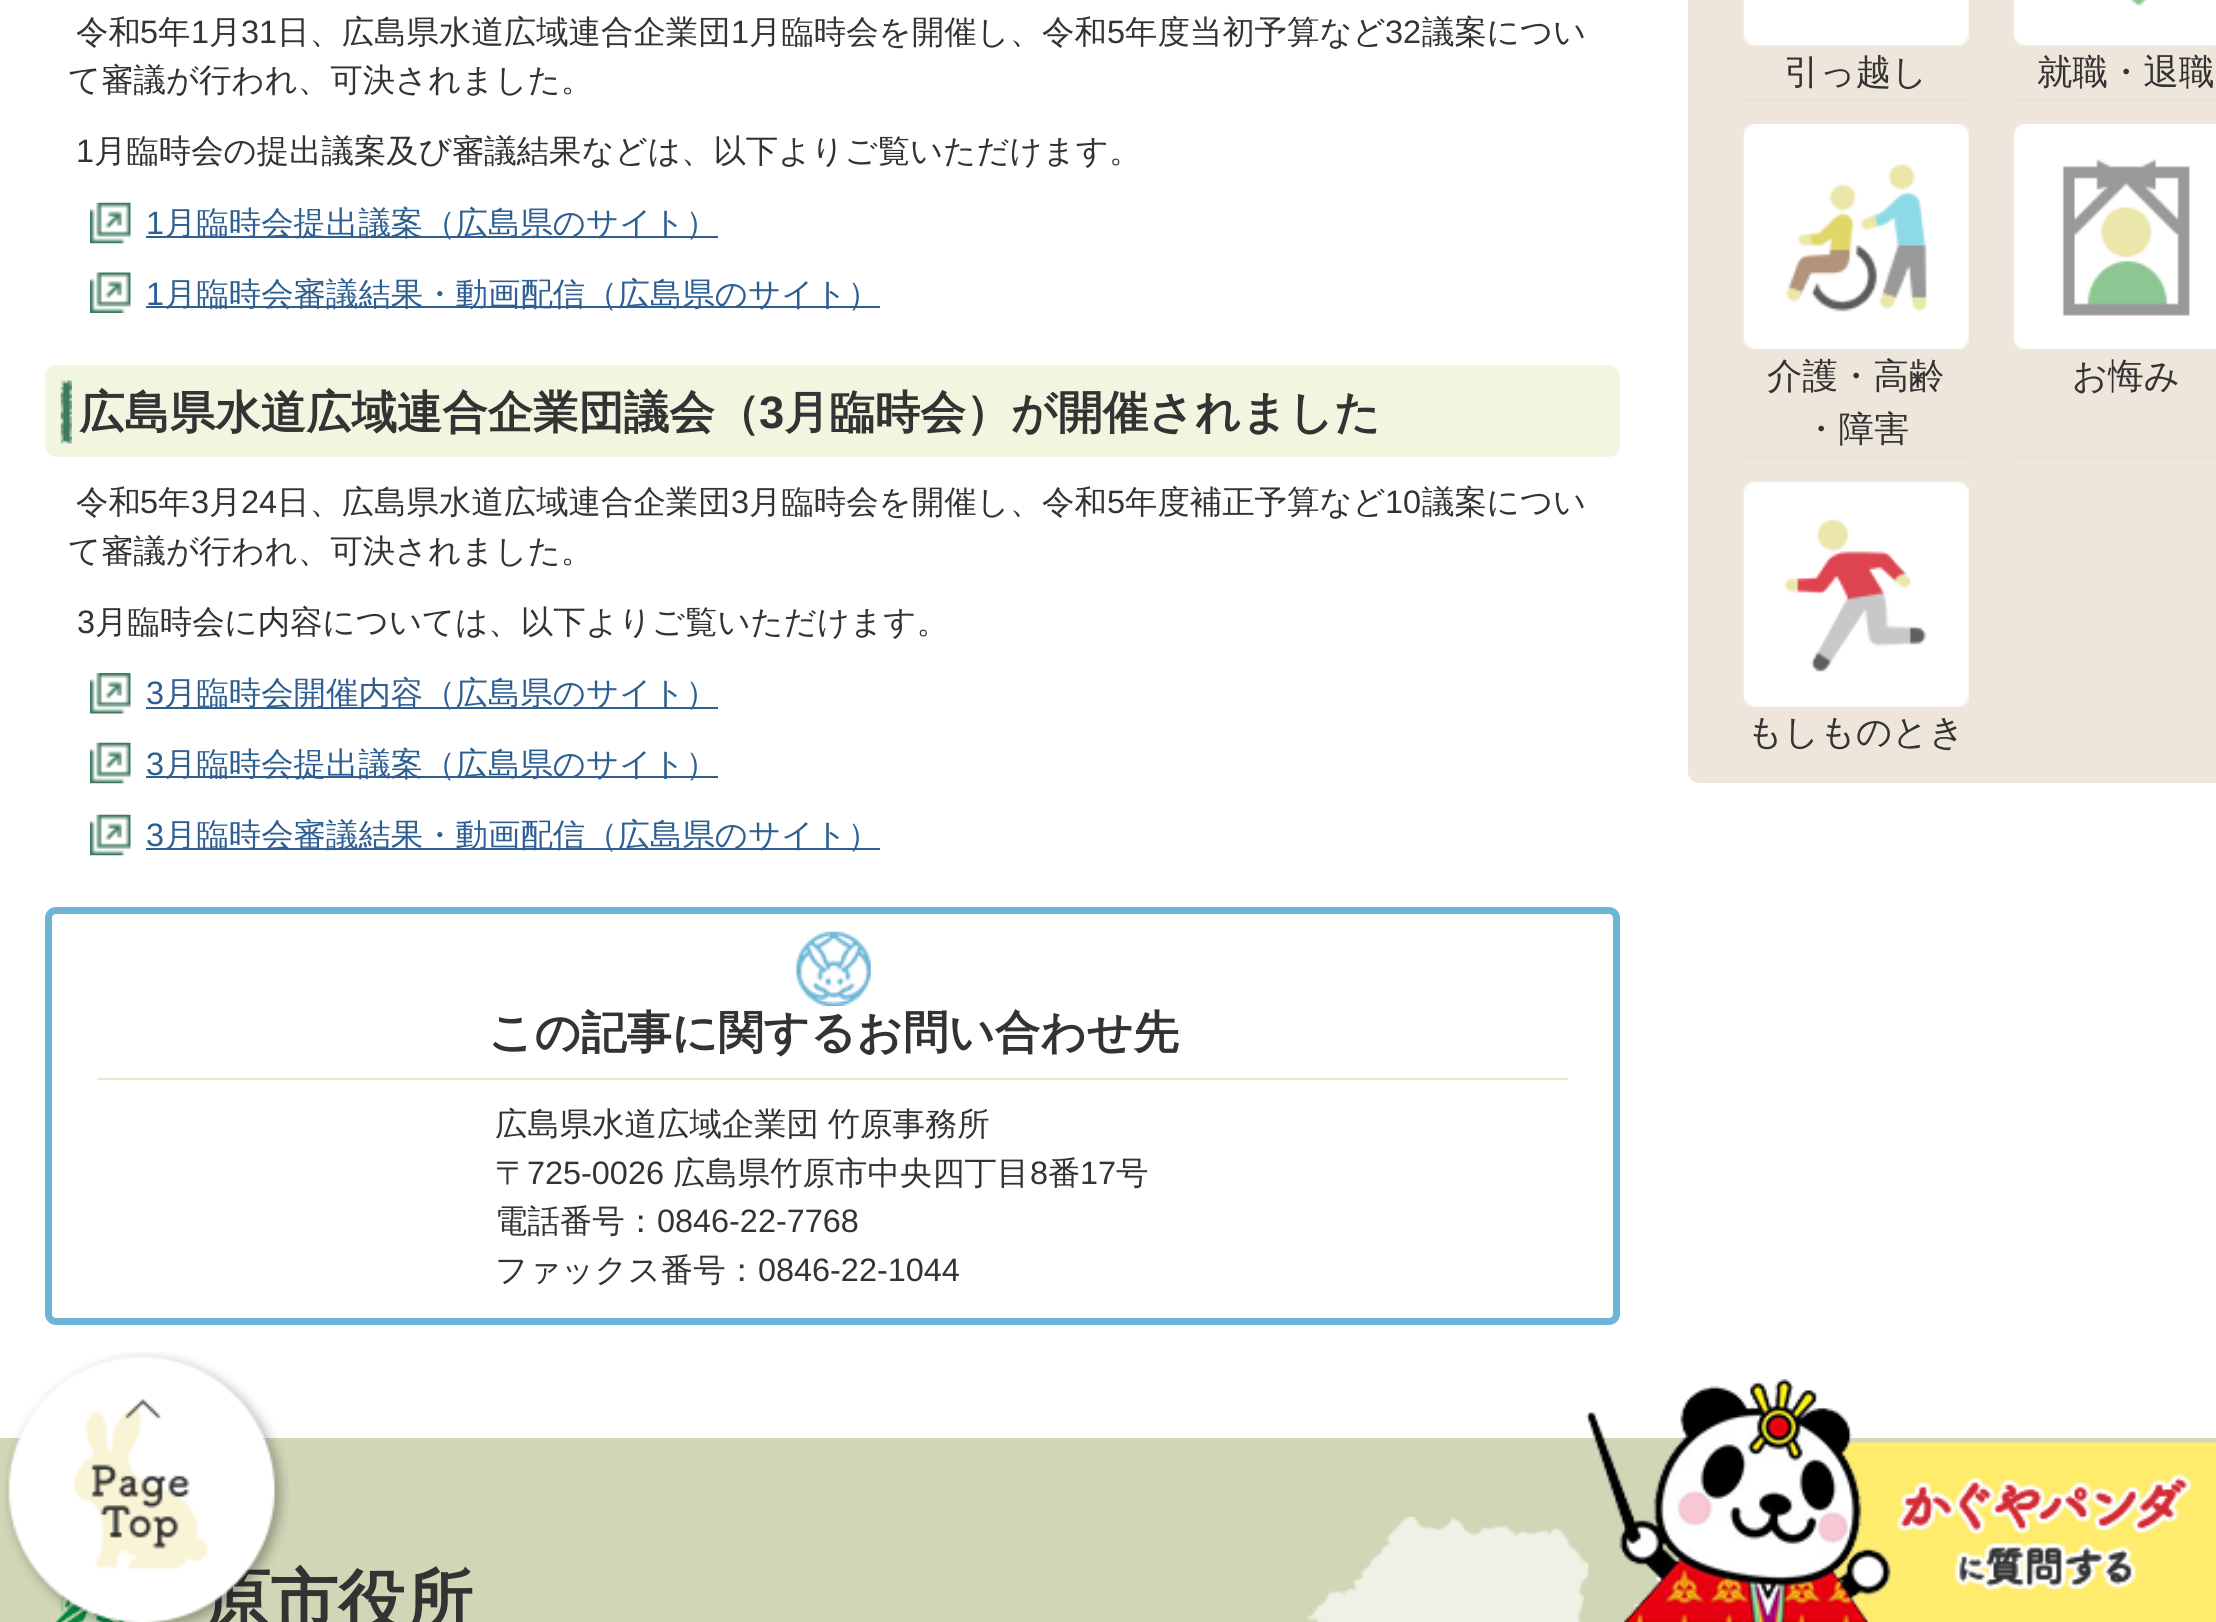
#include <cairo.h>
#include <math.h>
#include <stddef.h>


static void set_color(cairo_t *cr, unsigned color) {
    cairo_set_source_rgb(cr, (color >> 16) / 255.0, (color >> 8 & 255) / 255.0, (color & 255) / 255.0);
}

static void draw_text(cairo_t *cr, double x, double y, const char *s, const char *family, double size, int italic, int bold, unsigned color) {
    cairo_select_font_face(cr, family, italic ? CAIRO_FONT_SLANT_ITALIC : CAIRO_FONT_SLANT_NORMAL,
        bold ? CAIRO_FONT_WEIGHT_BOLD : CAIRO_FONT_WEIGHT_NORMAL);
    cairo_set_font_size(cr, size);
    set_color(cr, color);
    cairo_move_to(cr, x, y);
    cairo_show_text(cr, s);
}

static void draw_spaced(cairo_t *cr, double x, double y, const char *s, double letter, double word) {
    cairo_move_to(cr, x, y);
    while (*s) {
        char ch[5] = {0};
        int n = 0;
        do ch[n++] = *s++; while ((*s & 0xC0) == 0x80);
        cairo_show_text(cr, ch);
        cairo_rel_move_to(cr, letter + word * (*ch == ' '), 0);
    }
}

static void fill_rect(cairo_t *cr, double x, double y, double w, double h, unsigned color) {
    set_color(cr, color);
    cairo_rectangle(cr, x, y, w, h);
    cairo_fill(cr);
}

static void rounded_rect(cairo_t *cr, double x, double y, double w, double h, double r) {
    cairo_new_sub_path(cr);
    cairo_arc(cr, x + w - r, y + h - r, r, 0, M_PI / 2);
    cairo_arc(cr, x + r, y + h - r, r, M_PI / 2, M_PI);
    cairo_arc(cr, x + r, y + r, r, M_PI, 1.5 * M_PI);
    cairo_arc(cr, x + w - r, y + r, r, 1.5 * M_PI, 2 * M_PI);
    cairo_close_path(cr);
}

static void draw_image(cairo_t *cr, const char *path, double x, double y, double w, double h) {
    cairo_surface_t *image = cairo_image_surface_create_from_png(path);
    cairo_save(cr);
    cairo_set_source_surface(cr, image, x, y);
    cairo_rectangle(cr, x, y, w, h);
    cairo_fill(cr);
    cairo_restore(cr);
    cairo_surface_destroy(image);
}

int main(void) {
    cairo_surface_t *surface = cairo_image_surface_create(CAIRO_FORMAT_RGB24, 2216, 1622);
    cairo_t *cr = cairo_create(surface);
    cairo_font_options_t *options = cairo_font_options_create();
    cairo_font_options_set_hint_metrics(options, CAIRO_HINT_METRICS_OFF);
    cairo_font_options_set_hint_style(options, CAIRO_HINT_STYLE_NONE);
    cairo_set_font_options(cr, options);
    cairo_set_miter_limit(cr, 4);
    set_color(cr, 0xFFFFFF);
    cairo_paint(cr);
    draw_text(cr, 76, 43, "令和", "WenQuanYi Zen Hei Medium", 32.4, 0, 0, 0x333333);
    draw_text(cr, 140, 43, "5", "Liberation Sans", 32.4, 0, 0, 0x333333);
    draw_text(cr, 158, 43, "年", "WenQuanYi Zen Hei Medium", 32.4, 0, 0, 0x333333);
    draw_text(cr, 191, 43, "1", "Liberation Sans", 32.4, 0, 0, 0x333333);
    draw_text(cr, 209, 43, "月", "WenQuanYi Zen Hei Medium", 32.4, 0, 0, 0x333333);
    draw_text(cr, 241, 43, "31", "Liberation Sans", 32.4, 0, 0, 0x333333);
    draw_text(cr, 277, 43, "日、広島県水道広域連合企業団", "WenQuanYi Zen Hei Medium", 32.4, 0, 0, 0x333333);
    draw_text(cr, 731, 43, "1", "Liberation Sans", 32.4, 0, 0, 0x333333);
    draw_text(cr, 749, 43, "月臨時会を開催し、令和", "WenQuanYi Zen Hei Medium", 32.4, 0, 0, 0x333333);
    draw_text(cr, 1107, 43, "5", "Liberation Sans", 32.4, 0, 0, 0x333333);
    draw_text(cr, 1125, 43, "年度当初予算など", "WenQuanYi Zen Hei Medium", 32.4, 0, 0, 0x333333);
    draw_text(cr, 1385, 43, "32", "Liberation Sans", 32.4, 0, 0, 0x333333);
    draw_text(cr, 1422, 43, "議案につい", "WenQuanYi Zen Hei Medium", 32.4, 0, 0, 0x333333);
    draw_text(cr, 68, 91, "て審議が行われ、可決されました。", "WenQuanYi Zen Hei Medium", 32.4, 0, 0, 0x333333);
    draw_text(cr, 76, 162, "1", "Liberation Sans", 32.4, 0, 0, 0x333333);
    draw_text(cr, 94, 162, "月臨時会の提出議案及び審議結果などは、以下よりご覧いただけます。", "WenQuanYi Zen Hei Medium", 32.4, 0, 0, 0x333333);
    draw_image(cr, "assets/img1.png", 90, 202, 41, 42);
    draw_text(cr, 146, 234, "1", "Liberation Sans", 32.4, 0, 0, 0x2D5F92);
    fill_rect(cr, 146, 236, 572, 2, 0x2D5F92);
    draw_text(cr, 164, 234, "月臨時会提出議案（広島県のサイト）", "WenQuanYi Zen Hei Medium", 32.4, 0, 0, 0x2D5F92);
    draw_image(cr, "assets/img2.png", 90, 272, 41, 41);
    draw_text(cr, 146, 305, "1", "Liberation Sans", 32.4, 0, 0, 0x2D5F92);
    fill_rect(cr, 146, 306, 734, 2, 0x2D5F92);
    draw_text(cr, 164, 305, "月臨時会審議結果・動画配信（広島県のサイト）", "WenQuanYi Zen Hei Medium", 32.4, 0, 0, 0x2D5F92);
    set_color(cr, 0xF2F6E1);
    rounded_rect(cr, 45, 365, 1575, 92, 11);
    cairo_fill(cr);
    draw_image(cr, "assets/img3.png", 60, 380, 12, 64);
    draw_text(cr, 79, 428, "広島県水道広域連合企業団議会（", "WenQuanYi Zen Hei", 45.4, 0, 1, 0x333333);
    draw_text(cr, 759, 428, "3", "Liberation Sans", 45.4, 0, 1, 0x333333);
    draw_text(cr, 784, 428, "月臨時会）が開催されました", "WenQuanYi Zen Hei", 45.4, 0, 1, 0x333333);
    draw_text(cr, 76, 513, "令和", "WenQuanYi Zen Hei Medium", 32.4, 0, 0, 0x333333);
    draw_text(cr, 140, 513, "5", "Liberation Sans", 32.4, 0, 0, 0x333333);
    draw_text(cr, 158, 513, "年", "WenQuanYi Zen Hei Medium", 32.4, 0, 0, 0x333333);
    draw_text(cr, 191, 513, "3", "Liberation Sans", 32.4, 0, 0, 0x333333);
    draw_text(cr, 209, 513, "月", "WenQuanYi Zen Hei Medium", 32.4, 0, 0, 0x333333);
    draw_text(cr, 241, 513, "24", "Liberation Sans", 32.4, 0, 0, 0x333333);
    draw_text(cr, 277, 513, "日、広島県水道広域連合企業団", "WenQuanYi Zen Hei Medium", 32.4, 0, 0, 0x333333);
    draw_text(cr, 731, 513, "3", "Liberation Sans", 32.4, 0, 0, 0x333333);
    draw_text(cr, 749, 513, "月臨時会を開催し、令和", "WenQuanYi Zen Hei Medium", 32.4, 0, 0, 0x333333);
    draw_text(cr, 1107, 513, "5", "Liberation Sans", 32.4, 0, 0, 0x333333);
    draw_text(cr, 1125, 513, "年度補正予算など", "WenQuanYi Zen Hei Medium", 32.4, 0, 0, 0x333333);
    draw_text(cr, 1385, 513, "10", "Liberation Sans", 32.4, 0, 0, 0x333333);
    draw_text(cr, 1422, 513, "議案につい", "WenQuanYi Zen Hei Medium", 32.4, 0, 0, 0x333333);
    draw_text(cr, 68, 562, "て審議が行われ、可決されました。", "WenQuanYi Zen Hei Medium", 32.4, 0, 0, 0x333333);
    draw_text(cr, 77, 633, "3", "Liberation Sans", 32.4, 0, 0, 0x333333);
    draw_text(cr, 95, 633, "月臨時会に内容については、以下よりご覧いただけます。", "WenQuanYi Zen Hei Medium", 32.4, 0, 0, 0x333333);
    draw_image(cr, "assets/img4.png", 90, 673, 41, 41);
    draw_text(cr, 146, 704, "3", "Liberation Sans", 32.4, 0, 0, 0x2D5F92);
    fill_rect(cr, 146, 707, 572, 2, 0x2D5F92);
    draw_text(cr, 164, 704, "月臨時会開催内容（広島県のサイト）", "WenQuanYi Zen Hei Medium", 32.4, 0, 0, 0x2D5F92);
    draw_image(cr, "assets/img1.png", 90, 742, 41, 42);
    draw_text(cr, 146, 775, "3", "Liberation Sans", 32.4, 0, 0, 0x2D5F92);
    fill_rect(cr, 146, 776, 572, 2, 0x2D5F92);
    draw_text(cr, 164, 775, "月臨時会提出議案（広島県のサイト）", "WenQuanYi Zen Hei Medium", 32.4, 0, 0, 0x2D5F92);
    draw_image(cr, "assets/img5.png", 90, 814, 41, 42);
    draw_text(cr, 146, 846, "3", "Liberation Sans", 32.4, 0, 0, 0x2D5F92);
    fill_rect(cr, 146, 848, 734, 2, 0x2D5F92);
    draw_text(cr, 164, 846, "月臨時会審議結果・動画配信（広島県のサイト）", "WenQuanYi Zen Hei Medium", 32.4, 0, 0, 0x2D5F92);
    rounded_rect(cr, 48.5, 910.5, 1568, 411, 7.5);
    set_color(cr, 0x6EB4D7);
    cairo_set_line_width(cr, 7);
    cairo_stroke(cr);
    draw_image(cr, "assets/img6.png", 796, 931, 75, 75);
    fill_rect(cr, 97, 1078, 1471, 2, 0xEEE5D1);
    draw_text(cr, 488, 1048, "この記事に関するお問い合わせ先", "WenQuanYi Zen Hei", 45.4, 0, 1, 0x333333);
    cairo_select_font_face(cr, "WenQuanYi Zen Hei Medium", CAIRO_FONT_SLANT_NORMAL, CAIRO_FONT_WEIGHT_NORMAL);
    cairo_set_font_size(cr, 32.4);
    draw_spaced(cr, 495, 1135, "広島県水道広域企業団 竹原事務所", 0, -1);
    draw_text(cr, 495, 1184, "〒", "WenQuanYi Zen Hei Medium", 32.4, 0, 0, 0x333333);
    draw_text(cr, 527, 1184, "725-0026", "Liberation Sans", 32.4, 0, 0, 0x333333);
    draw_text(cr, 673, 1184, "広島県竹原市中央四丁目", "WenQuanYi Zen Hei Medium", 32.4, 0, 0, 0x333333);
    draw_text(cr, 1030, 1184, "8", "Liberation Sans", 32.4, 0, 0, 0x333333);
    draw_text(cr, 1048, 1184, "番", "WenQuanYi Zen Hei Medium", 32.4, 0, 0, 0x333333);
    draw_text(cr, 1080, 1184, "17", "Liberation Sans", 32.4, 0, 0, 0x333333);
    draw_text(cr, 1116, 1184, "号", "WenQuanYi Zen Hei Medium", 32.4, 0, 0, 0x333333);
    draw_text(cr, 495, 1232, "電話番号：", "WenQuanYi Zen Hei Medium", 32.4, 0, 0, 0x333333);
    draw_text(cr, 657, 1232, "0846-22-7768", "Liberation Sans", 32.4, 0, 0, 0x333333);
    draw_text(cr, 495, 1281, "ファックス番号：", "WenQuanYi Zen Hei Medium", 32.4, 0, 0, 0x333333);
    draw_text(cr, 758, 1281, "0846-22-1044", "Liberation Sans", 32.4, 0, 0, 0x333333);
    set_color(cr, 0xEEE6DA);
    rounded_rect(cr, 1688, -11, 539, 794, 11);
    cairo_fill(cr);
    fill_rect(cr, 1744, 99, 225, 2, 0xE1E8C5);
    draw_image(cr, "assets/img7.png", 1743, 0, 226, 46);
    draw_text(cr, 1784, 84, "引っ越し", "WenQuanYi Zen Hei Medium", 35.5, 0, 0, 0x333333);
    fill_rect(cr, 2014, 99, 202, 2, 0xE1E8C5);
    draw_image(cr, "assets/img8.png", 2013, 0, 203, 46);
    draw_text(cr, 2037, 84, "就職・退職", "WenQuanYi Zen Hei Medium", 35.5, 0, 0, 0x333333);
    fill_rect(cr, 1744, 457, 225, 2, 0xE1E8C5);
    draw_image(cr, "assets/img9.png", 1743, 124, 226, 225);
    draw_text(cr, 1767, 388, "介護・高齢", "WenQuanYi Zen Hei Medium", 35.5, 0, 0, 0x333333);
    draw_text(cr, 1803, 441, "・障害", "WenQuanYi Zen Hei Medium", 35.5, 0, 0, 0x333333);
    fill_rect(cr, 2014, 457, 202, 2, 0xE1E8C5);
    draw_image(cr, "assets/img10.png", 2013, 124, 203, 225);
    draw_text(cr, 2072, 388, "お悔み", "WenQuanYi Zen Hei Medium", 35.5, 0, 0, 0x333333);
    draw_image(cr, "assets/img11.png", 1743, 481, 226, 226);
    draw_text(cr, 1747, 744, "もしものとき", "WenQuanYi Zen Hei Medium", 35.5, 0, 0, 0x333333);
    fill_rect(cr, 0, 1438, 2216, 184, 0xD0D6B6);
    draw_image(cr, "assets/img13.png", 55, 1592, 72, 30);
    draw_text(cr, 203, 1624, "原市役所", "WenQuanYi Zen Hei", 67.5, 0, 1, 0x333333);
    draw_image(cr, "assets/img12.png", 4, 1352, 285, 270);
    draw_image(cr, "assets/img14.png", 1307, 1516, 282, 106);
    draw_image(cr, "assets/img15.png", 1585, 1379, 631, 243);
    cairo_surface_write_to_png(surface, "output.png");
    cairo_font_options_destroy(options);
    cairo_destroy(cr);
    cairo_surface_destroy(surface);
    return 0;
}
